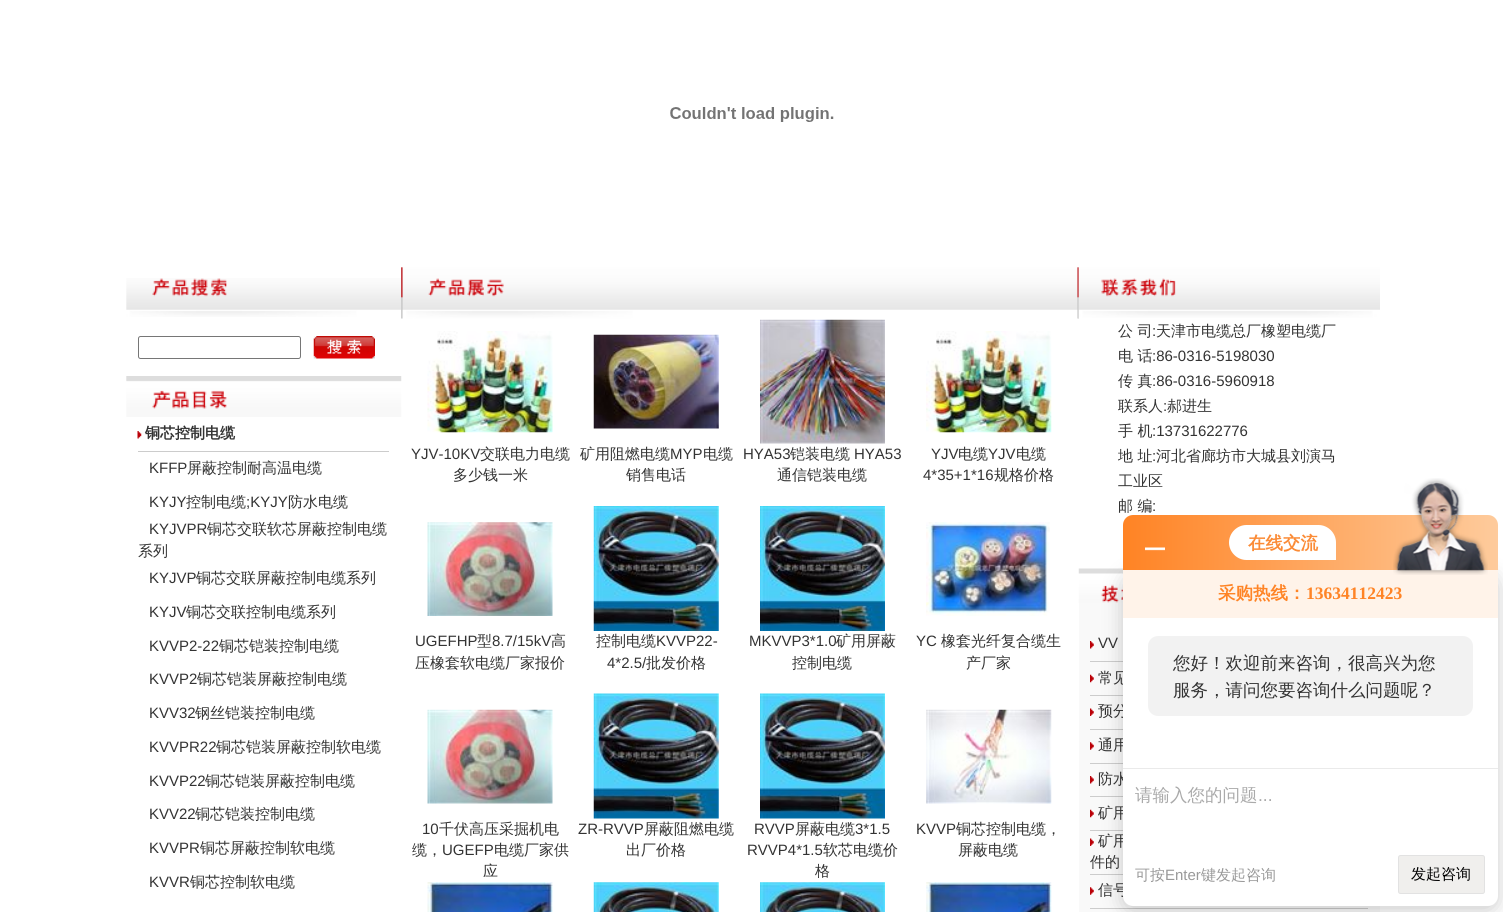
#include <cairo.h>
#include <math.h>
#include <stddef.h>


static void set_color(cairo_t *cr, unsigned color) {
    cairo_set_source_rgb(cr, (color >> 16) / 255.0, (color >> 8 & 255) / 255.0, (color & 255) / 255.0);
}

static void draw_text(cairo_t *cr, double x, double y, const char *s, const char *family, double size, int italic, int bold, unsigned color) {
    cairo_select_font_face(cr, family, italic ? CAIRO_FONT_SLANT_ITALIC : CAIRO_FONT_SLANT_NORMAL,
        bold ? CAIRO_FONT_WEIGHT_BOLD : CAIRO_FONT_WEIGHT_NORMAL);
    cairo_set_font_size(cr, size);
    set_color(cr, color);
    cairo_move_to(cr, x, y);
    cairo_show_text(cr, s);
}

static void fill_rect(cairo_t *cr, double x, double y, double w, double h, unsigned color) {
    set_color(cr, color);
    cairo_rectangle(cr, x, y, w, h);
    cairo_fill(cr);
}

static void rounded_rect(cairo_t *cr, double x, double y, double w, double h, double r) {
    cairo_new_sub_path(cr);
    cairo_arc(cr, x + w - r, y + h - r, r, 0, M_PI / 2);
    cairo_arc(cr, x + r, y + h - r, r, M_PI / 2, M_PI);
    cairo_arc(cr, x + r, y + r, r, M_PI, 1.5 * M_PI);
    cairo_arc(cr, x + w - r, y + r, r, 1.5 * M_PI, 2 * M_PI);
    cairo_close_path(cr);
}

static void draw_shadow(cairo_t *cr, double x, double y, double w, double h, double r, double blur, double alpha) {
    cairo_push_group_with_content(cr, CAIRO_CONTENT_ALPHA);
    cairo_set_operator(cr, CAIRO_OPERATOR_SOURCE);
    for (int i = 15; i >= -15 && fmin(w, h) + blur * i / 3 > 0; i -= 2) {
        double e = blur * i / 6;
        cairo_set_source_rgba(cr, 0, 0, 0, alpha * erfc((i - 1) / 8.5) / 2);
        rounded_rect(cr, x - e, y - e, w + 2 * e, h + 2 * e, fmax(0, fmin(r + e + blur * .6, fmin(w, h) / 2 + e)));
        cairo_fill(cr);
    }
    cairo_pattern_t *soft = cairo_pop_group(cr);
    cairo_mask(cr, soft);
    cairo_pattern_destroy(soft);
}

static void draw_image(cairo_t *cr, const char *path, double x, double y, double w, double h) {
    cairo_surface_t *image = cairo_image_surface_create_from_png(path);
    cairo_save(cr);
    cairo_set_source_surface(cr, image, x, y);
    cairo_rectangle(cr, x, y, w, h);
    cairo_fill(cr);
    cairo_restore(cr);
    cairo_surface_destroy(image);
}

int main(void) {
    cairo_surface_t *surface = cairo_image_surface_create(CAIRO_FORMAT_RGB24, 1503, 912);
    cairo_t *cr = cairo_create(surface);
    cairo_font_options_t *options = cairo_font_options_create();
    cairo_font_options_set_hint_metrics(options, CAIRO_HINT_METRICS_OFF);
    cairo_font_options_set_hint_style(options, CAIRO_HINT_STYLE_NONE);
    cairo_set_font_options(cr, options);
    cairo_set_miter_limit(cr, 4);
    cairo_pattern_t *gradient;
    set_color(cr, 0xFFFFFF);
    cairo_paint(cr);
    draw_image(cr, "assets/img1.png", 670, 107, 164, 15);
    draw_image(cr, "assets/img2.png", 126, 278, 276, 39);
    rounded_rect(cr, 138.5, 336.5, 162, 22, 2);
    set_color(cr, 0x767676);
    cairo_set_line_width(cr, 1);
    cairo_stroke(cr);
    draw_image(cr, "assets/img3.png", 313, 336, 62, 23);
    draw_image(cr, "assets/img4.png", 126, 376, 276, 41);
    fill_rect(cr, 138, 451, 251, 1, 0xCCCCCC);
    draw_image(cr, "assets/img5.png", 137, 431, 5, 8);
    draw_text(cr, 145, 438, "铜芯控制电缆", "WenQuanYi Zen Hei", 15, 0, 1, 0x333333);
    draw_text(cr, 149, 473, "KFFP", "Liberation Sans", 15, 0, 0, 0x333333);
    draw_text(cr, 187, 473, "屏蔽控制耐高温电缆", "WenQuanYi Zen Hei Medium", 15, 0, 0, 0x333333);
    draw_text(cr, 149, 507, "KYJY", "Liberation Sans", 15, 0, 0, 0x333333);
    draw_text(cr, 186, 507, "控制电缆", "WenQuanYi Zen Hei Medium", 15, 0, 0, 0x333333);
    draw_text(cr, 246, 507, ";KYJY", "Liberation Sans", 15, 0, 0, 0x333333);
    draw_text(cr, 288, 507, "防水电缆", "WenQuanYi Zen Hei Medium", 15, 0, 0, 0x333333);
    draw_text(cr, 149, 534, "KYJVPR", "Liberation Sans", 15, 0, 0, 0x333333);
    draw_text(cr, 207, 534, "铜芯交联软芯屏蔽控制电缆", "WenQuanYi Zen Hei Medium", 15, 0, 0, 0x333333);
    draw_text(cr, 138, 556, "系列", "WenQuanYi Zen Hei Medium", 15, 0, 0, 0x333333);
    draw_text(cr, 149, 583, "KYJVP", "Liberation Sans", 15, 0, 0, 0x333333);
    draw_text(cr, 196, 583, "铜芯交联屏蔽控制电缆系列", "WenQuanYi Zen Hei Medium", 15, 0, 0, 0x333333);
    draw_text(cr, 149, 617, "KYJV", "Liberation Sans", 15, 0, 0, 0x333333);
    draw_text(cr, 186, 617, "铜芯交联控制电缆系列", "WenQuanYi Zen Hei Medium", 15, 0, 0, 0x333333);
    draw_text(cr, 149, 651, "KVVP2-22", "Liberation Sans", 15, 0, 0, 0x333333);
    draw_text(cr, 219, 651, "铜芯铠装控制电缆", "WenQuanYi Zen Hei Medium", 15, 0, 0, 0x333333);
    draw_text(cr, 149, 684, "KVVP2", "Liberation Sans", 15, 0, 0, 0x333333);
    draw_text(cr, 197, 684, "铜芯铠装屏蔽控制电缆", "WenQuanYi Zen Hei Medium", 15, 0, 0, 0x333333);
    draw_text(cr, 149, 718, "KVV32", "Liberation Sans", 15, 0, 0, 0x333333);
    draw_text(cr, 195, 718, "钢丝铠装控制电缆", "WenQuanYi Zen Hei Medium", 15, 0, 0, 0x333333);
    draw_text(cr, 149, 752, "KVVPR22", "Liberation Sans", 15, 0, 0, 0x333333);
    draw_text(cr, 216, 752, "铜芯铠装屏蔽控制软电缆", "WenQuanYi Zen Hei Medium", 15, 0, 0, 0x333333);
    draw_text(cr, 149, 786, "KVVP22", "Liberation Sans", 15, 0, 0, 0x333333);
    draw_text(cr, 205, 786, "铜芯铠装屏蔽控制电缆", "WenQuanYi Zen Hei Medium", 15, 0, 0, 0x333333);
    draw_text(cr, 149, 819, "KVV22", "Liberation Sans", 15, 0, 0, 0x333333);
    draw_text(cr, 195, 819, "铜芯铠装控制电缆", "WenQuanYi Zen Hei Medium", 15, 0, 0, 0x333333);
    draw_text(cr, 149, 853, "KVVPR", "Liberation Sans", 15, 0, 0, 0x333333);
    draw_text(cr, 200, 853, "铜芯屏蔽控制软电缆", "WenQuanYi Zen Hei Medium", 15, 0, 0, 0x333333);
    draw_text(cr, 149, 887, "KVVR", "Liberation Sans", 15, 0, 0, 0x333333);
    draw_text(cr, 190, 887, "铜芯控制软电缆", "WenQuanYi Zen Hei Medium", 15, 0, 0, 0x333333);
    draw_image(cr, "assets/img6.png", 401, 267, 678, 52);
    draw_image(cr, "assets/img7.png", 427, 331, 126, 102);
    draw_text(cr, 411, 459, "YJV-10KV", "Liberation Sans", 15, 0, 0, 0x333333);
    draw_text(cr, 480, 459, "交联电力电缆", "WenQuanYi Zen Hei Medium", 15, 0, 0, 0x333333);
    draw_text(cr, 453, 480, "多少钱一米", "WenQuanYi Zen Hei Medium", 15, 0, 0, 0x333333);
    draw_image(cr, "assets/img8.png", 593, 334, 126, 95);
    draw_text(cr, 580, 459, "矿用阻燃电缆", "WenQuanYi Zen Hei Medium", 15, 0, 0, 0x333333);
    draw_text(cr, 670, 459, "MYP", "Liberation Sans", 15, 0, 0, 0x333333);
    draw_text(cr, 703, 459, "电缆", "WenQuanYi Zen Hei Medium", 15, 0, 0, 0x333333);
    draw_text(cr, 626, 480, "销售电话", "WenQuanYi Zen Hei Medium", 15, 0, 0, 0x333333);
    draw_image(cr, "assets/img9.png", 760, 319, 125, 125);
    draw_text(cr, 743, 459, "HYA53", "Liberation Sans", 15, 0, 0, 0x333333);
    draw_text(cr, 790, 459, "铠装电缆", "WenQuanYi Zen Hei Medium", 15, 0, 0, 0x333333);
    draw_text(cr, 854, 459, "HYA53", "Liberation Sans", 15, 0, 0, 0x333333);
    draw_text(cr, 777, 480, "通信铠装电缆", "WenQuanYi Zen Hei Medium", 15, 0, 0, 0x333333);
    draw_image(cr, "assets/img10.png", 926, 331, 126, 102);
    draw_text(cr, 931, 459, "YJV", "Liberation Sans", 15, 0, 0, 0x333333);
    draw_text(cr, 958, 459, "电缆", "WenQuanYi Zen Hei Medium", 15, 0, 0, 0x333333);
    draw_text(cr, 988, 459, "YJV", "Liberation Sans", 15, 0, 0, 0x333333);
    draw_text(cr, 1016, 459, "电缆", "WenQuanYi Zen Hei Medium", 15, 0, 0, 0x333333);
    draw_text(cr, 923, 480, "4*35+1*16", "Liberation Sans", 15, 0, 0, 0x333333);
    draw_text(cr, 994, 480, "规格价格", "WenQuanYi Zen Hei Medium", 15, 0, 0, 0x333333);
    draw_image(cr, "assets/img11.png", 427, 522, 126, 94);
    draw_text(cr, 415, 646, "UGEFHP", "Liberation Sans", 15, 0, 0, 0x333333);
    draw_text(cr, 477, 646, "型", "WenQuanYi Zen Hei Medium", 15, 0, 0, 0x333333);
    draw_text(cr, 492, 646, "8.7/15kV", "Liberation Sans", 15, 0, 0, 0x333333);
    draw_text(cr, 551, 646, "高", "WenQuanYi Zen Hei Medium", 15, 0, 0, 0x333333);
    draw_text(cr, 415, 668, "压橡套软电缆厂家报价", "WenQuanYi Zen Hei Medium", 15, 0, 0, 0x333333);
    draw_image(cr, "assets/img12.png", 593, 506, 126, 125);
    draw_text(cr, 596, 646, "控制电缆", "WenQuanYi Zen Hei Medium", 15, 0, 0, 0x333333);
    draw_text(cr, 656, 646, "KVVP22-", "Liberation Sans", 15, 0, 0, 0x333333);
    draw_text(cr, 607, 668, "4*2.5/", "Liberation Sans", 15, 0, 0, 0x333333);
    draw_text(cr, 646, 668, "批发价格", "WenQuanYi Zen Hei Medium", 15, 0, 0, 0x333333);
    draw_image(cr, "assets/img13.png", 760, 506, 125, 125);
    draw_text(cr, 749, 646, "MKVVP3*1.0", "Liberation Sans", 15, 0, 0, 0x333333);
    draw_text(cr, 836, 646, "矿用屏蔽", "WenQuanYi Zen Hei Medium", 15, 0, 0, 0x333333);
    draw_text(cr, 792, 668, "控制电缆", "WenQuanYi Zen Hei Medium", 15, 0, 0, 0x333333);
    draw_image(cr, "assets/img14.png", 926, 522, 124, 94);
    draw_text(cr, 916, 646, "YC", "Liberation Sans", 15, 0, 0, 0x333333);
    draw_text(cr, 941, 646, "橡套光纤复合缆生", "WenQuanYi Zen Hei Medium", 15, 0, 0, 0x333333);
    draw_text(cr, 966, 668, "产厂家", "WenQuanYi Zen Hei Medium", 15, 0, 0, 0x333333);
    draw_image(cr, "assets/img15.png", 427, 709, 126, 95);
    draw_text(cr, 422, 834, "10", "Liberation Sans", 15, 0, 0, 0x333333);
    draw_text(cr, 439, 834, "千伏高压采掘机电", "WenQuanYi Zen Hei Medium", 15, 0, 0, 0x333333);
    draw_text(cr, 412, 855, "缆，", "WenQuanYi Zen Hei Medium", 15, 0, 0, 0x333333);
    draw_text(cr, 442, 855, "UGEFP", "Liberation Sans", 15, 0, 0, 0x333333);
    draw_text(cr, 494, 855, "电缆厂家供", "WenQuanYi Zen Hei Medium", 15, 0, 0, 0x333333);
    draw_text(cr, 483, 876, "应", "WenQuanYi Zen Hei Medium", 15, 0, 0, 0x333333);
    draw_image(cr, "assets/img16.png", 593, 693, 126, 126);
    draw_text(cr, 578, 834, "ZR-RVVP", "Liberation Sans", 15, 0, 0, 0x333333);
    draw_text(cr, 644, 834, "屏蔽阻燃电缆", "WenQuanYi Zen Hei Medium", 15, 0, 0, 0x333333);
    draw_text(cr, 626, 855, "出厂价格", "WenQuanYi Zen Hei Medium", 15, 0, 0, 0x333333);
    draw_image(cr, "assets/img17.png", 760, 693, 125, 126);
    draw_text(cr, 754, 834, "RVVP", "Liberation Sans", 15, 0, 0, 0x333333);
    draw_text(cr, 795, 834, "屏蔽电缆", "WenQuanYi Zen Hei Medium", 15, 0, 0, 0x333333);
    draw_text(cr, 855, 834, "3*1.5", "Liberation Sans", 15, 0, 0, 0x333333);
    draw_text(cr, 747, 855, "RVVP4*1.5", "Liberation Sans", 15, 0, 0, 0x333333);
    draw_text(cr, 823, 855, "软芯电缆价", "WenQuanYi Zen Hei Medium", 15, 0, 0, 0x333333);
    draw_text(cr, 815, 876, "格", "WenQuanYi Zen Hei Medium", 15, 0, 0, 0x333333);
    draw_image(cr, "assets/img18.png", 926, 709, 126, 95);
    draw_text(cr, 916, 834, "KVVP", "Liberation Sans", 15, 0, 0, 0x333333);
    draw_text(cr, 956, 834, "铜芯控制电缆，", "WenQuanYi Zen Hei Medium", 15, 0, 0, 0x333333);
    draw_text(cr, 958, 855, "屏蔽电缆", "WenQuanYi Zen Hei Medium", 15, 0, 0, 0x333333);
    draw_image(cr, "assets/img19.png", 427, 882, 126, 30);
    draw_image(cr, "assets/img20.png", 593, 882, 126, 30);
    draw_image(cr, "assets/img21.png", 760, 882, 125, 30);
    draw_image(cr, "assets/img22.png", 926, 882, 126, 30);
    draw_image(cr, "assets/img23.png", 1078, 267, 302, 51);
    draw_text(cr, 1118, 336, "公 司", "WenQuanYi Zen Hei Medium", 15, 0, 0, 0x333333);
    draw_text(cr, 1152, 336, ":", "Liberation Sans", 15, 0, 0, 0x333333);
    draw_text(cr, 1156, 336, "天津市电缆总厂橡塑电缆厂", "WenQuanYi Zen Hei Medium", 15, 0, 0, 0x333333);
    draw_text(cr, 1118, 361, "电 话", "WenQuanYi Zen Hei Medium", 15, 0, 0, 0x333333);
    draw_text(cr, 1152, 361, ":86-0316-5198030", "Liberation Sans", 15, 0, 0, 0x333333);
    draw_text(cr, 1118, 386, "传 真", "WenQuanYi Zen Hei Medium", 15, 0, 0, 0x333333);
    draw_text(cr, 1152, 386, ":86-0316-5960918", "Liberation Sans", 15, 0, 0, 0x333333);
    draw_text(cr, 1118, 411, "联系人", "WenQuanYi Zen Hei Medium", 15, 0, 0, 0x333333);
    draw_text(cr, 1163, 411, ":", "Liberation Sans", 15, 0, 0, 0x333333);
    draw_text(cr, 1167, 411, "郝进生", "WenQuanYi Zen Hei Medium", 15, 0, 0, 0x333333);
    draw_text(cr, 1118, 436, "手 机", "WenQuanYi Zen Hei Medium", 15, 0, 0, 0x333333);
    draw_text(cr, 1152, 436, ":13731622776", "Liberation Sans", 15, 0, 0, 0x333333);
    draw_text(cr, 1118, 461, "地 址", "WenQuanYi Zen Hei Medium", 15, 0, 0, 0x333333);
    draw_text(cr, 1152, 461, ":", "Liberation Sans", 15, 0, 0, 0x333333);
    draw_text(cr, 1156, 461, "河北省廊坊市大城县刘演马", "WenQuanYi Zen Hei Medium", 15, 0, 0, 0x333333);
    draw_text(cr, 1118, 486, "工业区", "WenQuanYi Zen Hei Medium", 15, 0, 0, 0x333333);
    draw_text(cr, 1118, 511, "邮 编", "WenQuanYi Zen Hei Medium", 15, 0, 0, 0x333333);
    draw_text(cr, 1152, 511, ":", "Liberation Sans", 15, 0, 0, 0x333333);
    fill_rect(cr, 1079, 603, 301, 309, 0xF9F9F9);
    draw_image(cr, "assets/img24.png", 1078, 568, 45, 35);
    fill_rect(cr, 1090, 661, 33, 1, 0xCCCCCC);
    draw_image(cr, "assets/img25.png", 1090, 641, 4, 8);
    draw_text(cr, 1098, 648, "VV", "Liberation Sans", 15, 0, 0, 0x333333);
    fill_rect(cr, 1090, 695, 33, 1, 0xCCCCCC);
    draw_image(cr, "assets/img26.png", 1090, 674, 4, 9);
    draw_text(cr, 1098, 683, "常见", "WenQuanYi Zen Hei Medium", 15, 0, 0, 0x333333);
    fill_rect(cr, 1090, 729, 33, 1, 0xCCCCCC);
    draw_image(cr, "assets/img27.png", 1090, 708, 4, 8);
    draw_text(cr, 1098, 716, "预分", "WenQuanYi Zen Hei Medium", 15, 0, 0, 0x333333);
    fill_rect(cr, 1090, 763, 33, 1, 0xCCCCCC);
    draw_image(cr, "assets/img28.png", 1090, 742, 4, 8);
    draw_text(cr, 1098, 750, "通用", "WenQuanYi Zen Hei Medium", 15, 0, 0, 0x333333);
    fill_rect(cr, 1090, 796, 33, 1, 0xCCCCCC);
    draw_image(cr, "assets/img25.png", 1090, 776, 4, 8);
    draw_text(cr, 1098, 784, "防水", "WenQuanYi Zen Hei Medium", 15, 0, 0, 0x333333);
    fill_rect(cr, 1090, 830, 33, 1, 0xCCCCCC);
    draw_image(cr, "assets/img26.png", 1090, 809, 4, 9);
    draw_text(cr, 1098, 818, "矿用", "WenQuanYi Zen Hei Medium", 15, 0, 0, 0x333333);
    fill_rect(cr, 1090, 874, 33, 1, 0xCCCCCC);
    draw_image(cr, "assets/img27.png", 1090, 838, 4, 8);
    draw_text(cr, 1098, 846, "矿用", "WenQuanYi Zen Hei Medium", 15, 0, 0, 0x333333);
    draw_text(cr, 1090, 867, "件的", "WenQuanYi Zen Hei Medium", 15, 0, 0, 0x333333);
    fill_rect(cr, 1090, 908, 278, 1, 0xCCCCCC);
    draw_image(cr, "assets/img28.png", 1090, 887, 4, 8);
    draw_text(cr, 1098, 895, "信号", "WenQuanYi Zen Hei Medium", 15, 0, 0, 0x333333);
    set_color(cr, 0x000000);
    draw_shadow(cr, 1123, 575, 375, 336, 10, 10, 0.2);
    gradient = cairo_pattern_create_linear(1123, 543, 1498, 543);
    cairo_pattern_add_color_stop_rgba(gradient, 0, 1, 0.514, 0.141, 1);
    cairo_pattern_add_color_stop_rgba(gradient, 1, 0.996, 0.796, 0.612, 1);
    cairo_set_source(cr, gradient);
    cairo_pattern_destroy(gradient);
    cairo_new_path(cr);
    cairo_move_to(cr, 1133, 515);
    cairo_line_to(cr, 1488, 515);
    cairo_curve_to(cr, 1493.5, 515, 1498, 519.5, 1498, 525);
    cairo_line_to(cr, 1498, 570);
    cairo_line_to(cr, 1123, 570);
    cairo_line_to(cr, 1123, 525);
    cairo_curve_to(cr, 1123, 519.5, 1127.5, 515, 1133, 515);
    cairo_close_path(cr);
    cairo_fill(cr);
    draw_image(cr, "assets/img29.png", 1145, 547, 20, 4);
    set_color(cr, 0xFFFFFF);
    cairo_new_path(cr);
    cairo_move_to(cr, 1246.5, 525);
    cairo_line_to(cr, 1318.5, 525);
    cairo_curve_to(cr, 1328, 525, 1336, 533, 1336, 542.5);
    cairo_line_to(cr, 1336, 560);
    cairo_line_to(cr, 1246.5, 560);
    cairo_curve_to(cr, 1237, 560, 1229, 552, 1229, 542.5);
    cairo_curve_to(cr, 1229, 533, 1237, 525, 1246.5, 525);
    cairo_close_path(cr);
    cairo_fill(cr);
    draw_text(cr, 1248, 549, "在线交流", "WenQuanYi Zen Hei", 17.5, 0, 1, 0xFB8B36);
    set_color(cr, 0xFFFFFF);
    cairo_new_path(cr);
    cairo_move_to(cr, 1123, 570);
    cairo_line_to(cr, 1498, 570);
    cairo_line_to(cr, 1498, 896);
    cairo_curve_to(cr, 1498, 901.5, 1493.5, 906, 1488, 906);
    cairo_line_to(cr, 1133, 906);
    cairo_curve_to(cr, 1127.5, 906, 1123, 901.5, 1123, 896);
    cairo_close_path(cr);
    cairo_fill(cr);
    fill_rect(cr, 1123, 570, 375, 48, 0xFFF3E9);
    draw_image(cr, "assets/img30.png", 1393, 478, 95, 97);
    draw_text(cr, 1218, 599, "采购热线：", "WenQuanYi Zen Hei", 17.5, 0, 1, 0xFF8426);
    draw_text(cr, 1306, 599, "13634112423", "Liberation Serif", 17.5, 0, 1, 0xFF8426);
    set_color(cr, 0xF2F2F2);
    rounded_rect(cr, 1148, 636, 325, 80, 10);
    cairo_fill(cr);
    draw_text(cr, 1173, 669, "您好！欢迎前来咨询，很高兴为您", "WenQuanYi Zen Hei Medium", 17.5, 0, 0, 0x333333);
    draw_text(cr, 1173, 696, "服务，请问您要咨询什么问题呢？", "WenQuanYi Zen Hei Medium", 17.5, 0, 0, 0x333333);
    fill_rect(cr, 1123, 768, 375, 1, 0xEAEAEA);
    draw_text(cr, 1135, 801, "请输入您的问题", "WenQuanYi Zen Hei Medium", 17.5, 0, 0, 0xAAAAAA);
    draw_text(cr, 1258, 801, "...", "Liberation Sans", 17.5, 0, 0, 0xAAAAAA);
    draw_text(cr, 1135, 880, "可按", "WenQuanYi Zen Hei Medium", 15, 0, 0, 0x999999);
    draw_text(cr, 1165, 880, "Enter", "Liberation Sans", 15, 0, 0, 0x999999);
    draw_text(cr, 1201, 880, "键发起咨询", "WenQuanYi Zen Hei Medium", 15, 0, 0, 0x999999);
    set_color(cr, 0xF0EFED);
    rounded_rect(cr, 1398.5, 855.5, 86, 38, 2);
    cairo_fill_preserve(cr);
    set_color(cr, 0xE2E2E2);
    cairo_stroke(cr);
    draw_text(cr, 1411, 879, "发起咨询", "WenQuanYi Zen Hei Medium", 15, 0, 0, 0x000000);
    cairo_surface_write_to_png(surface, "output.png");
    cairo_font_options_destroy(options);
    cairo_destroy(cr);
    cairo_surface_destroy(surface);
    return 0;
}
